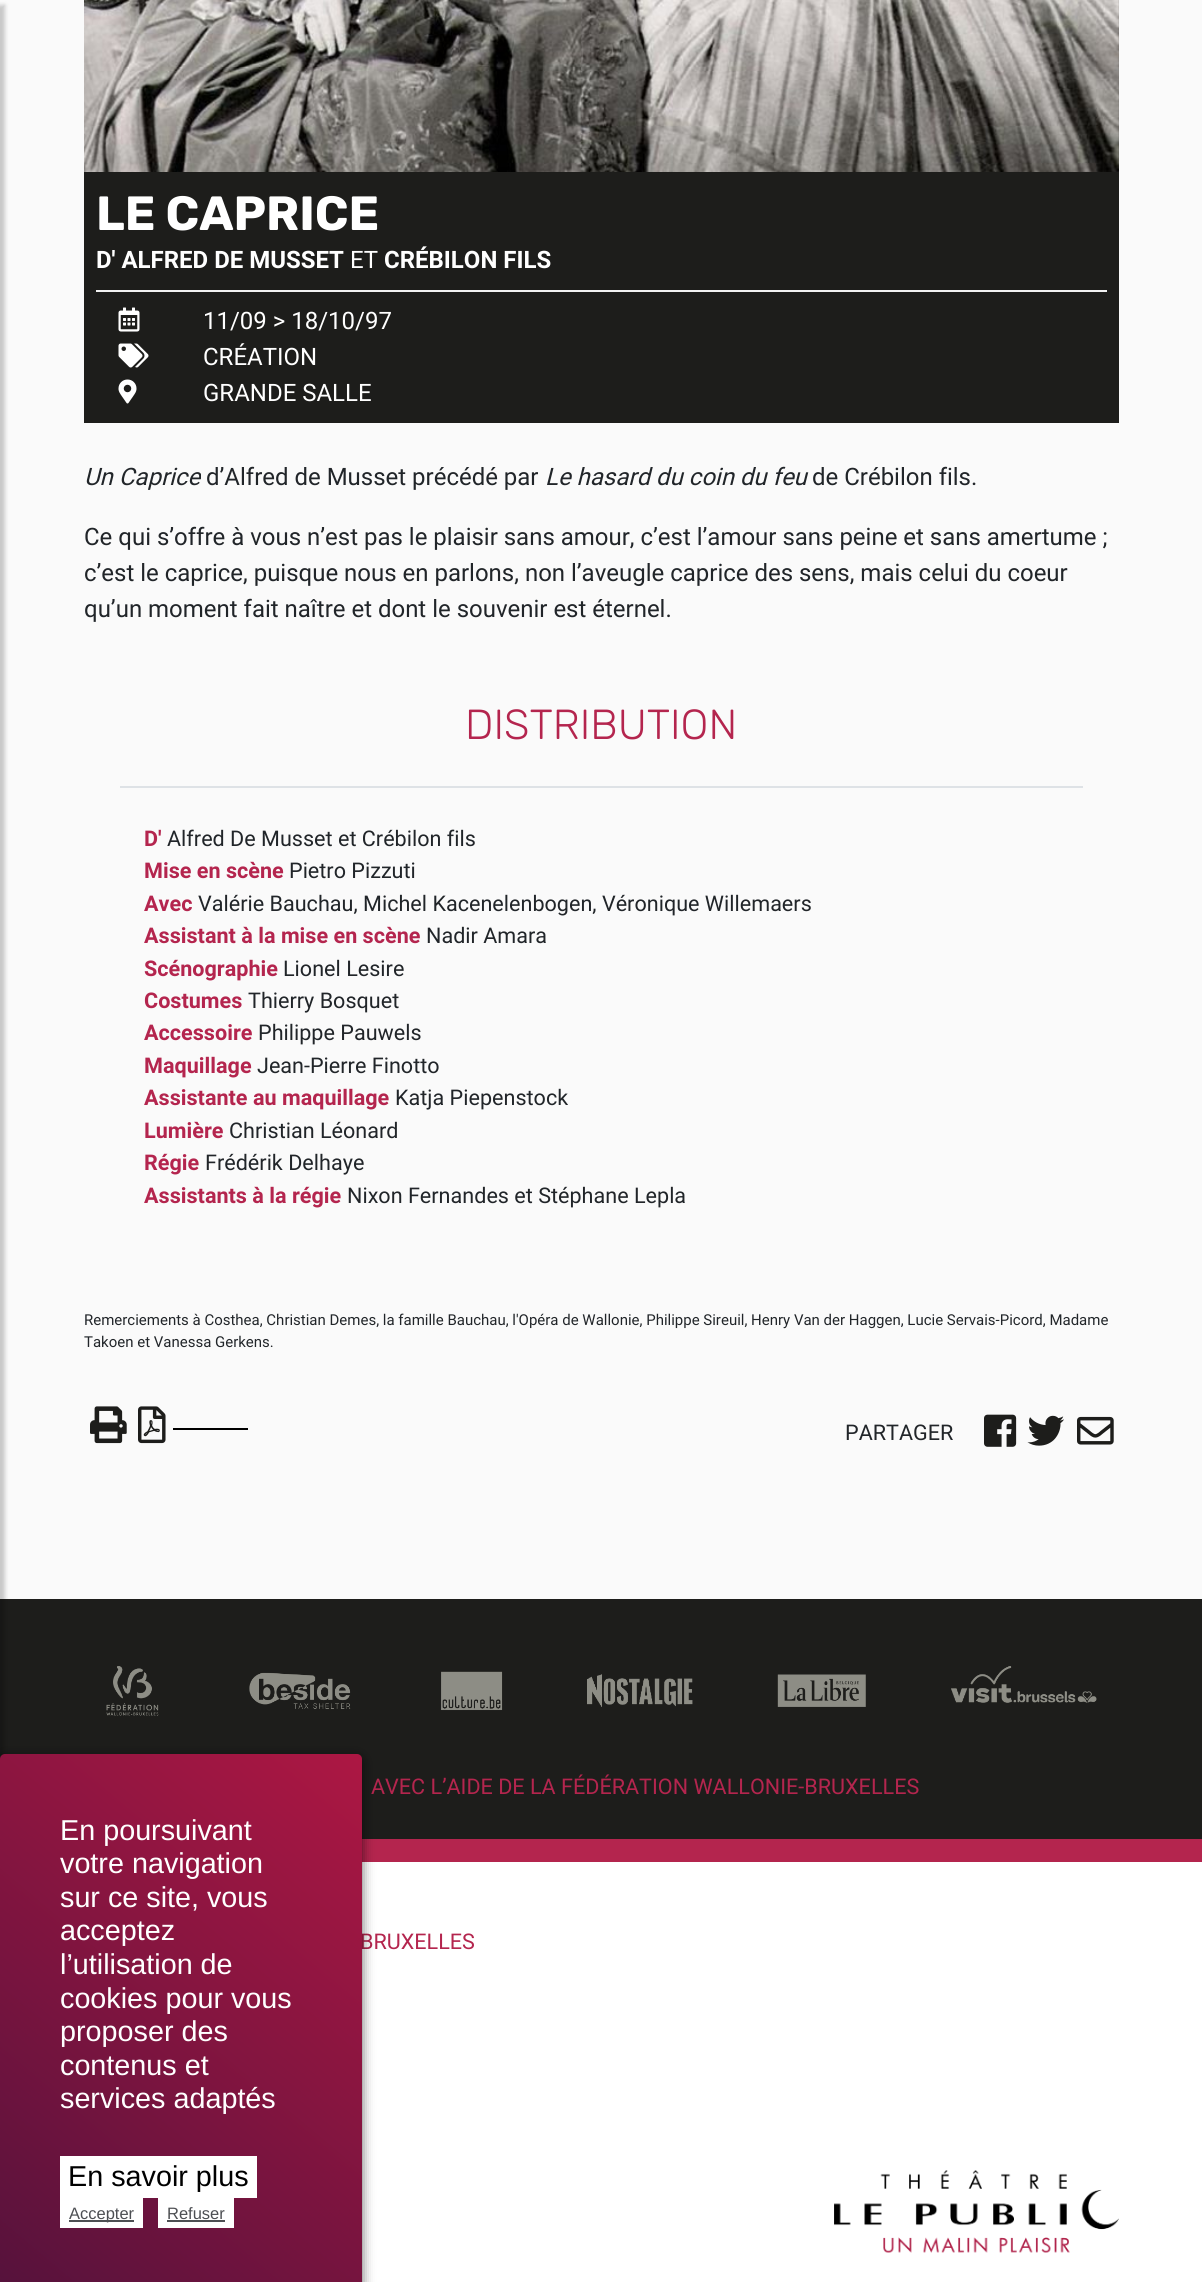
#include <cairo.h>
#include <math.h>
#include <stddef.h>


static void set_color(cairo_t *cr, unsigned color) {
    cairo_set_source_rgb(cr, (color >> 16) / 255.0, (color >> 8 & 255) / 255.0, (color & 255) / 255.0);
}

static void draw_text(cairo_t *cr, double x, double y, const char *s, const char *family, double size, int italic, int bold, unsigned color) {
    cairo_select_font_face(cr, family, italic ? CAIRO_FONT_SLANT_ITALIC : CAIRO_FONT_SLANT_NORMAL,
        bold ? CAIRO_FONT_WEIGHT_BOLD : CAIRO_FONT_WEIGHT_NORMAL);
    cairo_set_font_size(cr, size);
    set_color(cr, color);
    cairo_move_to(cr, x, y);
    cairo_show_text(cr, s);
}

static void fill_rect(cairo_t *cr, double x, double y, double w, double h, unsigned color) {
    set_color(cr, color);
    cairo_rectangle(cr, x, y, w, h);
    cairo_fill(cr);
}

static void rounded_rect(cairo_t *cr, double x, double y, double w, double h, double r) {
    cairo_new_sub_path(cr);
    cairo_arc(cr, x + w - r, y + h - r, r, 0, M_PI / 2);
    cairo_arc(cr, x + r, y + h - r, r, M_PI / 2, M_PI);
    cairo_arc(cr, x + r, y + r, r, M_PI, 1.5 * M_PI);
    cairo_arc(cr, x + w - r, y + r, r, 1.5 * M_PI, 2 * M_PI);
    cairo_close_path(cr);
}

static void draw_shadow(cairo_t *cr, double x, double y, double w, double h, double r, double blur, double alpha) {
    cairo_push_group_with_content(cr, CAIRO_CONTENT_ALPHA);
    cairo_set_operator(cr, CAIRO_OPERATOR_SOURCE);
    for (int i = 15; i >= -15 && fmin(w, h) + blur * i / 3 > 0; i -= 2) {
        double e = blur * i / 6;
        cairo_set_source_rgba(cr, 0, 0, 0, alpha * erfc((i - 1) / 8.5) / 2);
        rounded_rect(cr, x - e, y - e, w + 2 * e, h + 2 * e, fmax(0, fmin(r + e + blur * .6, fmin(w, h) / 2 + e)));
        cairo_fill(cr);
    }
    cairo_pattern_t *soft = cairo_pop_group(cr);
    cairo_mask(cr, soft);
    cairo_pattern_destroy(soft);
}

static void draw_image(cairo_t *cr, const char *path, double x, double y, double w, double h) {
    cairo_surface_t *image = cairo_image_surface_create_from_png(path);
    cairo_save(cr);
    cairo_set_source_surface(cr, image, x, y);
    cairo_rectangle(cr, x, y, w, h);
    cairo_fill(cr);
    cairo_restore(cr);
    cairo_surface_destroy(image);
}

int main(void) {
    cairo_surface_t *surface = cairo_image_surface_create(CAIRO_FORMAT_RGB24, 1202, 2282);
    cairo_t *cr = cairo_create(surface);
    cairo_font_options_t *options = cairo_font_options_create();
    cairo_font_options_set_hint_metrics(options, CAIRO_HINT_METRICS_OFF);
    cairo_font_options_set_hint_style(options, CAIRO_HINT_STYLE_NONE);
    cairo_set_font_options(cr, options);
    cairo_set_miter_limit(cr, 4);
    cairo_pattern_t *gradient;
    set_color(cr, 0xFFFFFF);
    cairo_paint(cr);
    fill_rect(cr, 0, 0, 1202, 1599, 0xFAFAFA);
    fill_rect(cr, 0, 1599, 1202, 240, 0x1D1D1B);
    set_color(cr, 0x000000);
    draw_shadow(cr, -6, 5, 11, 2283, 0, 2, 0.2);
    fill_rect(cr, 84, 0, 1035, 423, 0x1D1D1B);
    draw_image(cr, "assets/img1.png", 84, 0, 1035, 172);
    draw_text(cr, 96, 230, "LE CAPRICE", "Rubik", 48, 0, 1, 0xFFFFFF);
    draw_text(cr, 96, 268, "D' ALFRED DE MUSSET", "Roboto", 24, 0, 1, 0xFFFFFF);
    draw_text(cr, 350, 268, "ET", "Roboto", 24, 0, 0, 0xFFFFFF);
    draw_text(cr, 384, 268, "CRÉBILON FILS", "Roboto", 24, 0, 1, 0xFFFFFF);
    fill_rect(cr, 96, 290, 1011, 2, 0xF2F2F2);
    draw_image(cr, "assets/img2.png", 118, 307, 22, 25);
    draw_text(cr, 203, 329, "11/09 > 18/10/97", "Roboto", 24, 0, 0, 0xFFFFFF);
    draw_image(cr, "assets/img3.png", 118, 343, 31, 25);
    draw_text(cr, 203, 365, "CRÉATION", "Roboto", 24, 0, 0, 0xFFFFFF);
    draw_image(cr, "assets/img4.png", 118, 379, 19, 25);
    draw_text(cr, 203, 401, "GRANDE SALLE", "Roboto", 24, 0, 0, 0xFFFFFF);
    draw_text(cr, 84, 485, "Un Caprice", "Roboto", 24, 1, 0, 0x212529);
    draw_text(cr, 206, 485, "d’Alfred de Musset précédé par", "Roboto", 24, 0, 0, 0x212529);
    draw_text(cr, 545, 485, "Le hasard du coin du feu", "Roboto", 24, 1, 0, 0x212529);
    draw_text(cr, 812, 485, "de Crébilon fils.", "Roboto", 24, 0, 0, 0x212529);
    draw_text(cr, 84, 545, "Ce qui s’offre à vous n’est pas le plaisir sans amour, c’est l’amour sans peine et sans amertume ;", "Roboto", 24, 0, 0, 0x212529);
    draw_text(cr, 84, 581, "c’est le caprice, puisque nous en parlons, non l’aveugle caprice des sens, mais celui du coeur", "Roboto", 24, 0, 0, 0x212529);
    draw_text(cr, 84, 617, "qu’un moment fait naître et dont le souvenir est éternel.", "Roboto", 24, 0, 0, 0x212529);
    fill_rect(cr, 120, 786, 963, 2, 0xDEE2E6);
    draw_text(cr, 465, 739, "DISTRIBUTION", "Rubik Light", 42, 0, 0, 0xB4254E);
    draw_text(cr, 144, 846, "D'", "Roboto", 21.6, 0, 1, 0xB4254E);
    draw_text(cr, 167, 846, "Alfred De Musset et Crébilon fils", "Roboto", 21.6, 0, 0, 0x212529);
    draw_text(cr, 144, 878, "Mise en scène", "Roboto", 21.6, 0, 1, 0xB4254E);
    draw_text(cr, 289, 878, "Pietro Pizzuti", "Roboto", 21.6, 0, 0, 0x212529);
    draw_text(cr, 144, 911, "Avec", "Roboto", 21.6, 0, 1, 0xB4254E);
    draw_text(cr, 198, 911, "Valérie Bauchau, Michel Kacenelenbogen, Véronique Willemaers", "Roboto", 21.6, 0, 0, 0x212529);
    draw_text(cr, 144, 943, "Assistant à la mise en scène", "Roboto", 21.6, 0, 1, 0xB4254E);
    draw_text(cr, 426, 943, "Nadir Amara", "Roboto", 21.6, 0, 0, 0x212529);
    draw_text(cr, 144, 976, "Scénographie", "Roboto", 21.6, 0, 1, 0xB4254E);
    draw_text(cr, 283, 976, "Lionel Lesire", "Roboto", 21.6, 0, 0, 0x212529);
    draw_text(cr, 144, 1008, "Costumes", "Roboto", 21.6, 0, 1, 0xB4254E);
    draw_text(cr, 248, 1008, "Thierry Bosquet", "Roboto", 21.6, 0, 0, 0x212529);
    draw_text(cr, 144, 1040, "Accessoire", "Roboto", 21.6, 0, 1, 0xB4254E);
    draw_text(cr, 258, 1040, "Philippe Pauwels", "Roboto", 21.6, 0, 0, 0x212529);
    draw_text(cr, 144, 1073, "Maquillage", "Roboto", 21.6, 0, 1, 0xB4254E);
    draw_text(cr, 257, 1073, "Jean-Pierre Finotto", "Roboto", 21.6, 0, 0, 0x212529);
    draw_text(cr, 144, 1105, "Assistante au maquillage", "Roboto", 21.6, 0, 1, 0xB4254E);
    draw_text(cr, 395, 1105, "Katja Piepenstock", "Roboto", 21.6, 0, 0, 0x212529);
    draw_text(cr, 144, 1138, "Lumière", "Roboto", 21.6, 0, 1, 0xB4254E);
    draw_text(cr, 229, 1138, "Christian Léonard", "Roboto", 21.6, 0, 0, 0x212529);
    draw_text(cr, 144, 1170, "Régie", "Roboto", 21.6, 0, 1, 0xB4254E);
    draw_text(cr, 205, 1170, "Frédérik Delhaye", "Roboto", 21.6, 0, 0, 0x212529);
    draw_text(cr, 144, 1203, "Assistants à la régie", "Roboto", 21.6, 0, 1, 0xB4254E);
    draw_text(cr, 347, 1203, "Nixon Fernandes et Stéphane Lepla", "Roboto", 21.6, 0, 0, 0x212529);
    draw_text(cr, 84, 1325, "Remerciements à Costhea, Christian Demes, la famille Bauchau, l'Opéra de Wallonie, Philippe Sireuil, Henry Van der Haggen, Lucie Servais-Picord, Madame", "Roboto", 15, 0, 0, 0x212529);
    draw_text(cr, 84, 1347, "Takoen et Vanessa Gerkens.", "Roboto", 15, 0, 0, 0x212529);
    draw_image(cr, "assets/img5.png", 90, 1406, 37, 38);
    draw_image(cr, "assets/img6.png", 138, 1406, 28, 38);
    fill_rect(cr, 173, 1428, 75, 2, 0x000000);
    draw_text(cr, 845, 1440, "PARTAGER", "Roboto", 21.6, 0, 0, 0x212529);
    draw_image(cr, "assets/img7.png", 984, 1414, 33, 33);
    draw_image(cr, "assets/img8.png", 1027, 1415, 37, 31);
    draw_image(cr, "assets/img9.png", 1077, 1416, 37, 29);
    fill_rect(cr, 362, 1839, 840, 23, 0xB4254E);
    draw_image(cr, "assets/img10.png", 106, 1666, 991, 50);
    draw_text(cr, 371, 1794, "AVEC L’AIDE DE LA FÉDÉRATION WALLONIE-BRUXELLES", "Roboto", 21.6, 0, 0, 0xB4254E);
    draw_text(cr, 360, 1949, "BRUXELLES", "Roboto", 21.6, 0, 0, 0xB4254E);
    draw_image(cr, "assets/img11.png", 834, 2170, 285, 83);
    set_color(cr, 0x000000);
    draw_shadow(cr, 0, 1757, 362, 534, 5, 6, 0.6);
    gradient = cairo_pattern_create_linear(-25, 2266, 387, 1775);
    cairo_pattern_add_color_stop_rgba(gradient, 0, 0.337, 0.071, 0.235, 1);
    cairo_pattern_add_color_stop_rgba(gradient, 1, 0.678, 0.09, 0.263, 1);
    cairo_set_source(cr, gradient);
    cairo_pattern_destroy(gradient);
    rounded_rect(cr, 0, 1754, 362, 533, 5);
    cairo_fill(cr);
    draw_text(cr, 60, 1840, "En poursuivant", "Liberation Sans", 28.75, 0, 0, 0xFFFFFF);
    draw_text(cr, 60, 1873, "votre navigation", "Liberation Sans", 28.75, 0, 0, 0xFFFFFF);
    draw_text(cr, 60, 1907, "sur ce site, vous", "Liberation Sans", 28.75, 0, 0, 0xFFFFFF);
    draw_text(cr, 60, 1940, "acceptez", "Liberation Sans", 28.75, 0, 0, 0xFFFFFF);
    draw_text(cr, 60, 1974, "l’utilisation de", "Liberation Sans", 28.75, 0, 0, 0xFFFFFF);
    draw_text(cr, 60, 2008, "cookies pour vous", "Liberation Sans", 28.75, 0, 0, 0xFFFFFF);
    draw_text(cr, 60, 2041, "proposer des", "Liberation Sans", 28.75, 0, 0, 0xFFFFFF);
    draw_text(cr, 60, 2075, "contenus et", "Liberation Sans", 28.75, 0, 0, 0xFFFFFF);
    draw_text(cr, 60, 2108, "services adaptés", "Liberation Sans", 28.75, 0, 0, 0xFFFFFF);
    fill_rect(cr, 60, 2156, 197, 42, 0xFFFFFF);
    draw_text(cr, 68, 2186, "En savoir plus", "Liberation Sans", 28.75, 0, 0, 0x000000);
    fill_rect(cr, 60, 2198, 83, 30, 0xFFFFFF);
    fill_rect(cr, 69, 2220, 65, 2, 0x4D4F53);
    draw_text(cr, 69, 2219, "Accepter", "Liberation Sans", 16.5, 0, 0, 0x4D4F53);
    fill_rect(cr, 158, 2198, 76, 30, 0xFFFFFF);
    draw_text(cr, 167, 2219, "Refuser", "Liberation Sans", 16.5, 0, 0, 0x4D4F53);
    fill_rect(cr, 167, 2220, 58, 2, 0x4D4F53);
    cairo_surface_write_to_png(surface, "output.png");
    cairo_font_options_destroy(options);
    cairo_destroy(cr);
    cairo_surface_destroy(surface);
    return 0;
}
